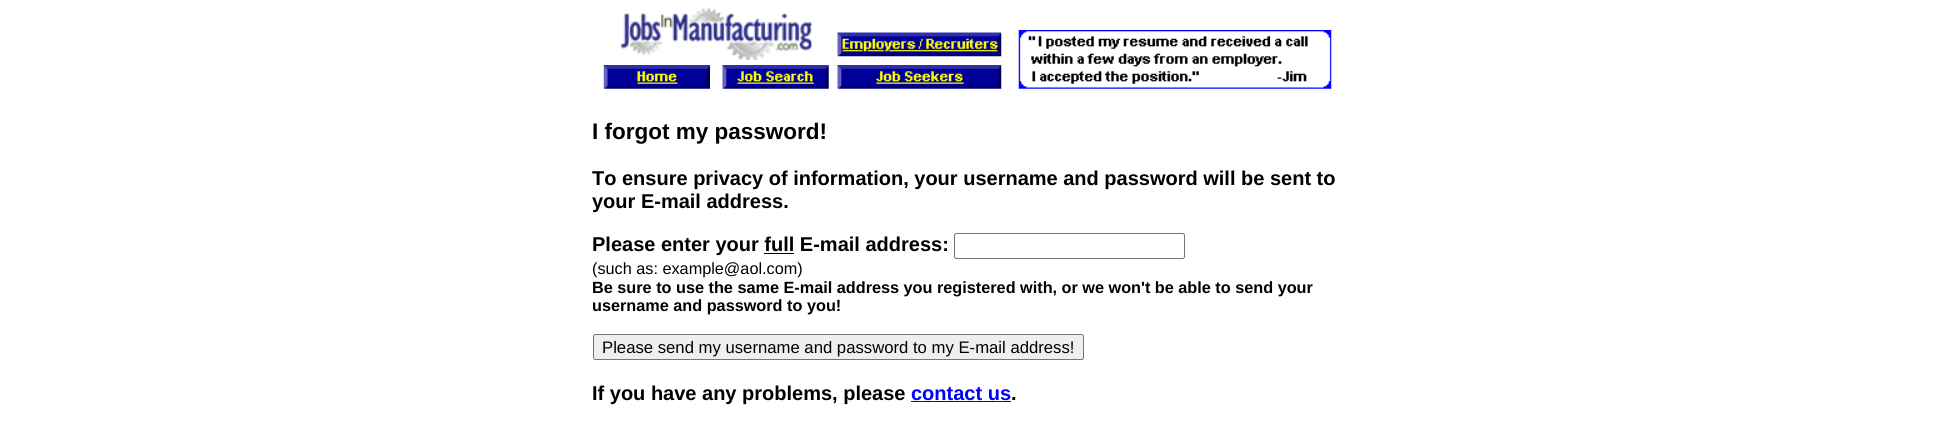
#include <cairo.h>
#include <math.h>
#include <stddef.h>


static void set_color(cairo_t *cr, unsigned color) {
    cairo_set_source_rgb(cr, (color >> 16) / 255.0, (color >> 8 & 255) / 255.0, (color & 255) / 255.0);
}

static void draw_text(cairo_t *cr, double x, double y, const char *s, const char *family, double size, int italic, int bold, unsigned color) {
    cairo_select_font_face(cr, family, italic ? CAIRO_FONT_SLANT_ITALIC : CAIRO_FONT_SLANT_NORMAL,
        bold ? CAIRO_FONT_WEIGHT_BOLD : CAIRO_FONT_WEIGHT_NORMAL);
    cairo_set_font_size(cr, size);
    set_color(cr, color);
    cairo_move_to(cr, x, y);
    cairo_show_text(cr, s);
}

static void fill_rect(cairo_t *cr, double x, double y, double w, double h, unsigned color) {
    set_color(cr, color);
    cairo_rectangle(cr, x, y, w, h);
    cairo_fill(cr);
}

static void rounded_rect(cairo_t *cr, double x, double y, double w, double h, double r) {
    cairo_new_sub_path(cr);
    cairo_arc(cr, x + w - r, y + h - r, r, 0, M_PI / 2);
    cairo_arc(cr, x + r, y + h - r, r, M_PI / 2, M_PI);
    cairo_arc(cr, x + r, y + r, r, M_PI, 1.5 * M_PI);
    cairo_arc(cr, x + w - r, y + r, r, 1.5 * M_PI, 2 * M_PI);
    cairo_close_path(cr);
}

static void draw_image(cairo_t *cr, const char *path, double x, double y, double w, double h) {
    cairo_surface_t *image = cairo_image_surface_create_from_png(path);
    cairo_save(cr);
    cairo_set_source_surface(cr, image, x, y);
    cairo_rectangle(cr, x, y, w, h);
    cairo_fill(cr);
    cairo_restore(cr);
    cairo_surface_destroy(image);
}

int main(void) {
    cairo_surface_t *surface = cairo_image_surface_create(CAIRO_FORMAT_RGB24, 1933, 442);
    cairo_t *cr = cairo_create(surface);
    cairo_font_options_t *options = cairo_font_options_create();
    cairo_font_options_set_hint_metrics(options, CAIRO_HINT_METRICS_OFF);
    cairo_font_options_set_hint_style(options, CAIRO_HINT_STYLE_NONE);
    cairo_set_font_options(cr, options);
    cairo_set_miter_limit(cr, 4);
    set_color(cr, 0xFFFFFF);
    cairo_paint(cr);
    draw_image(cr, "assets/img1.png", 621, 7, 191, 53);
    draw_image(cr, "assets/img2.png", 837, 32, 165, 25);
    draw_image(cr, "assets/img3.png", 603, 65, 107, 24);
    draw_image(cr, "assets/img4.png", 722, 65, 107, 24);
    draw_image(cr, "assets/img5.png", 837, 65, 165, 24);
    draw_image(cr, "assets/img6.png", 1018, 30, 314, 59);
    draw_text(cr, 592, 139, "I forgot my password!", "Liberation Sans", 22.5, 0, 1, 0x000000);
    draw_text(cr, 592, 185, "To ensure privacy of information, your username and password will be sent to", "Liberation Sans", 20, 0, 1, 0x000000);
    draw_text(cr, 592, 208, "your E-mail address.", "Liberation Sans", 20, 0, 1, 0x000000);
    draw_text(cr, 592, 251, "Please enter your full E-mail address:", "Liberation Sans", 20, 0, 1, 0x000000);
    fill_rect(cr, 764, 253, 30, 1, 0x000000);
    rounded_rect(cr, 954.5, 233.5, 230, 25, 2);
    set_color(cr, 0x767676);
    cairo_set_line_width(cr, 1);
    cairo_stroke(cr);
    draw_text(cr, 592, 274, "(such as: example@aol.com)", "Liberation Sans", 16.25, 0, 0, 0x000000);
    draw_text(cr, 592, 293, "Be sure to use the same E-mail address you registered with, or we won't be able to send your", "Liberation Sans", 16.25, 0, 1, 0x000000);
    draw_text(cr, 592, 311, "username and password to you!", "Liberation Sans", 16.25, 0, 1, 0x000000);
    set_color(cr, 0xEFEFEF);
    rounded_rect(cr, 593.5, 334.5, 490, 25, 2);
    cairo_fill_preserve(cr);
    set_color(cr, 0x767676);
    cairo_stroke(cr);
    draw_text(cr, 602, 353, "Please send my username and password to my E-mail address!", "Liberation Sans", 16.7, 0, 0, 0x000000);
    draw_text(cr, 592, 400, "If you have any problems, please", "Liberation Sans", 20, 0, 1, 0x000000);
    draw_text(cr, 911, 400, "contact us", "Liberation Sans", 20, 0, 1, 0x0000FF);
    fill_rect(cr, 911, 401, 100, 1, 0x0000EE);
    draw_text(cr, 1011, 400, ".", "Liberation Sans", 20, 0, 1, 0x000000);
    cairo_surface_write_to_png(surface, "output.png");
    cairo_font_options_destroy(options);
    cairo_destroy(cr);
    cairo_surface_destroy(surface);
    return 0;
}
